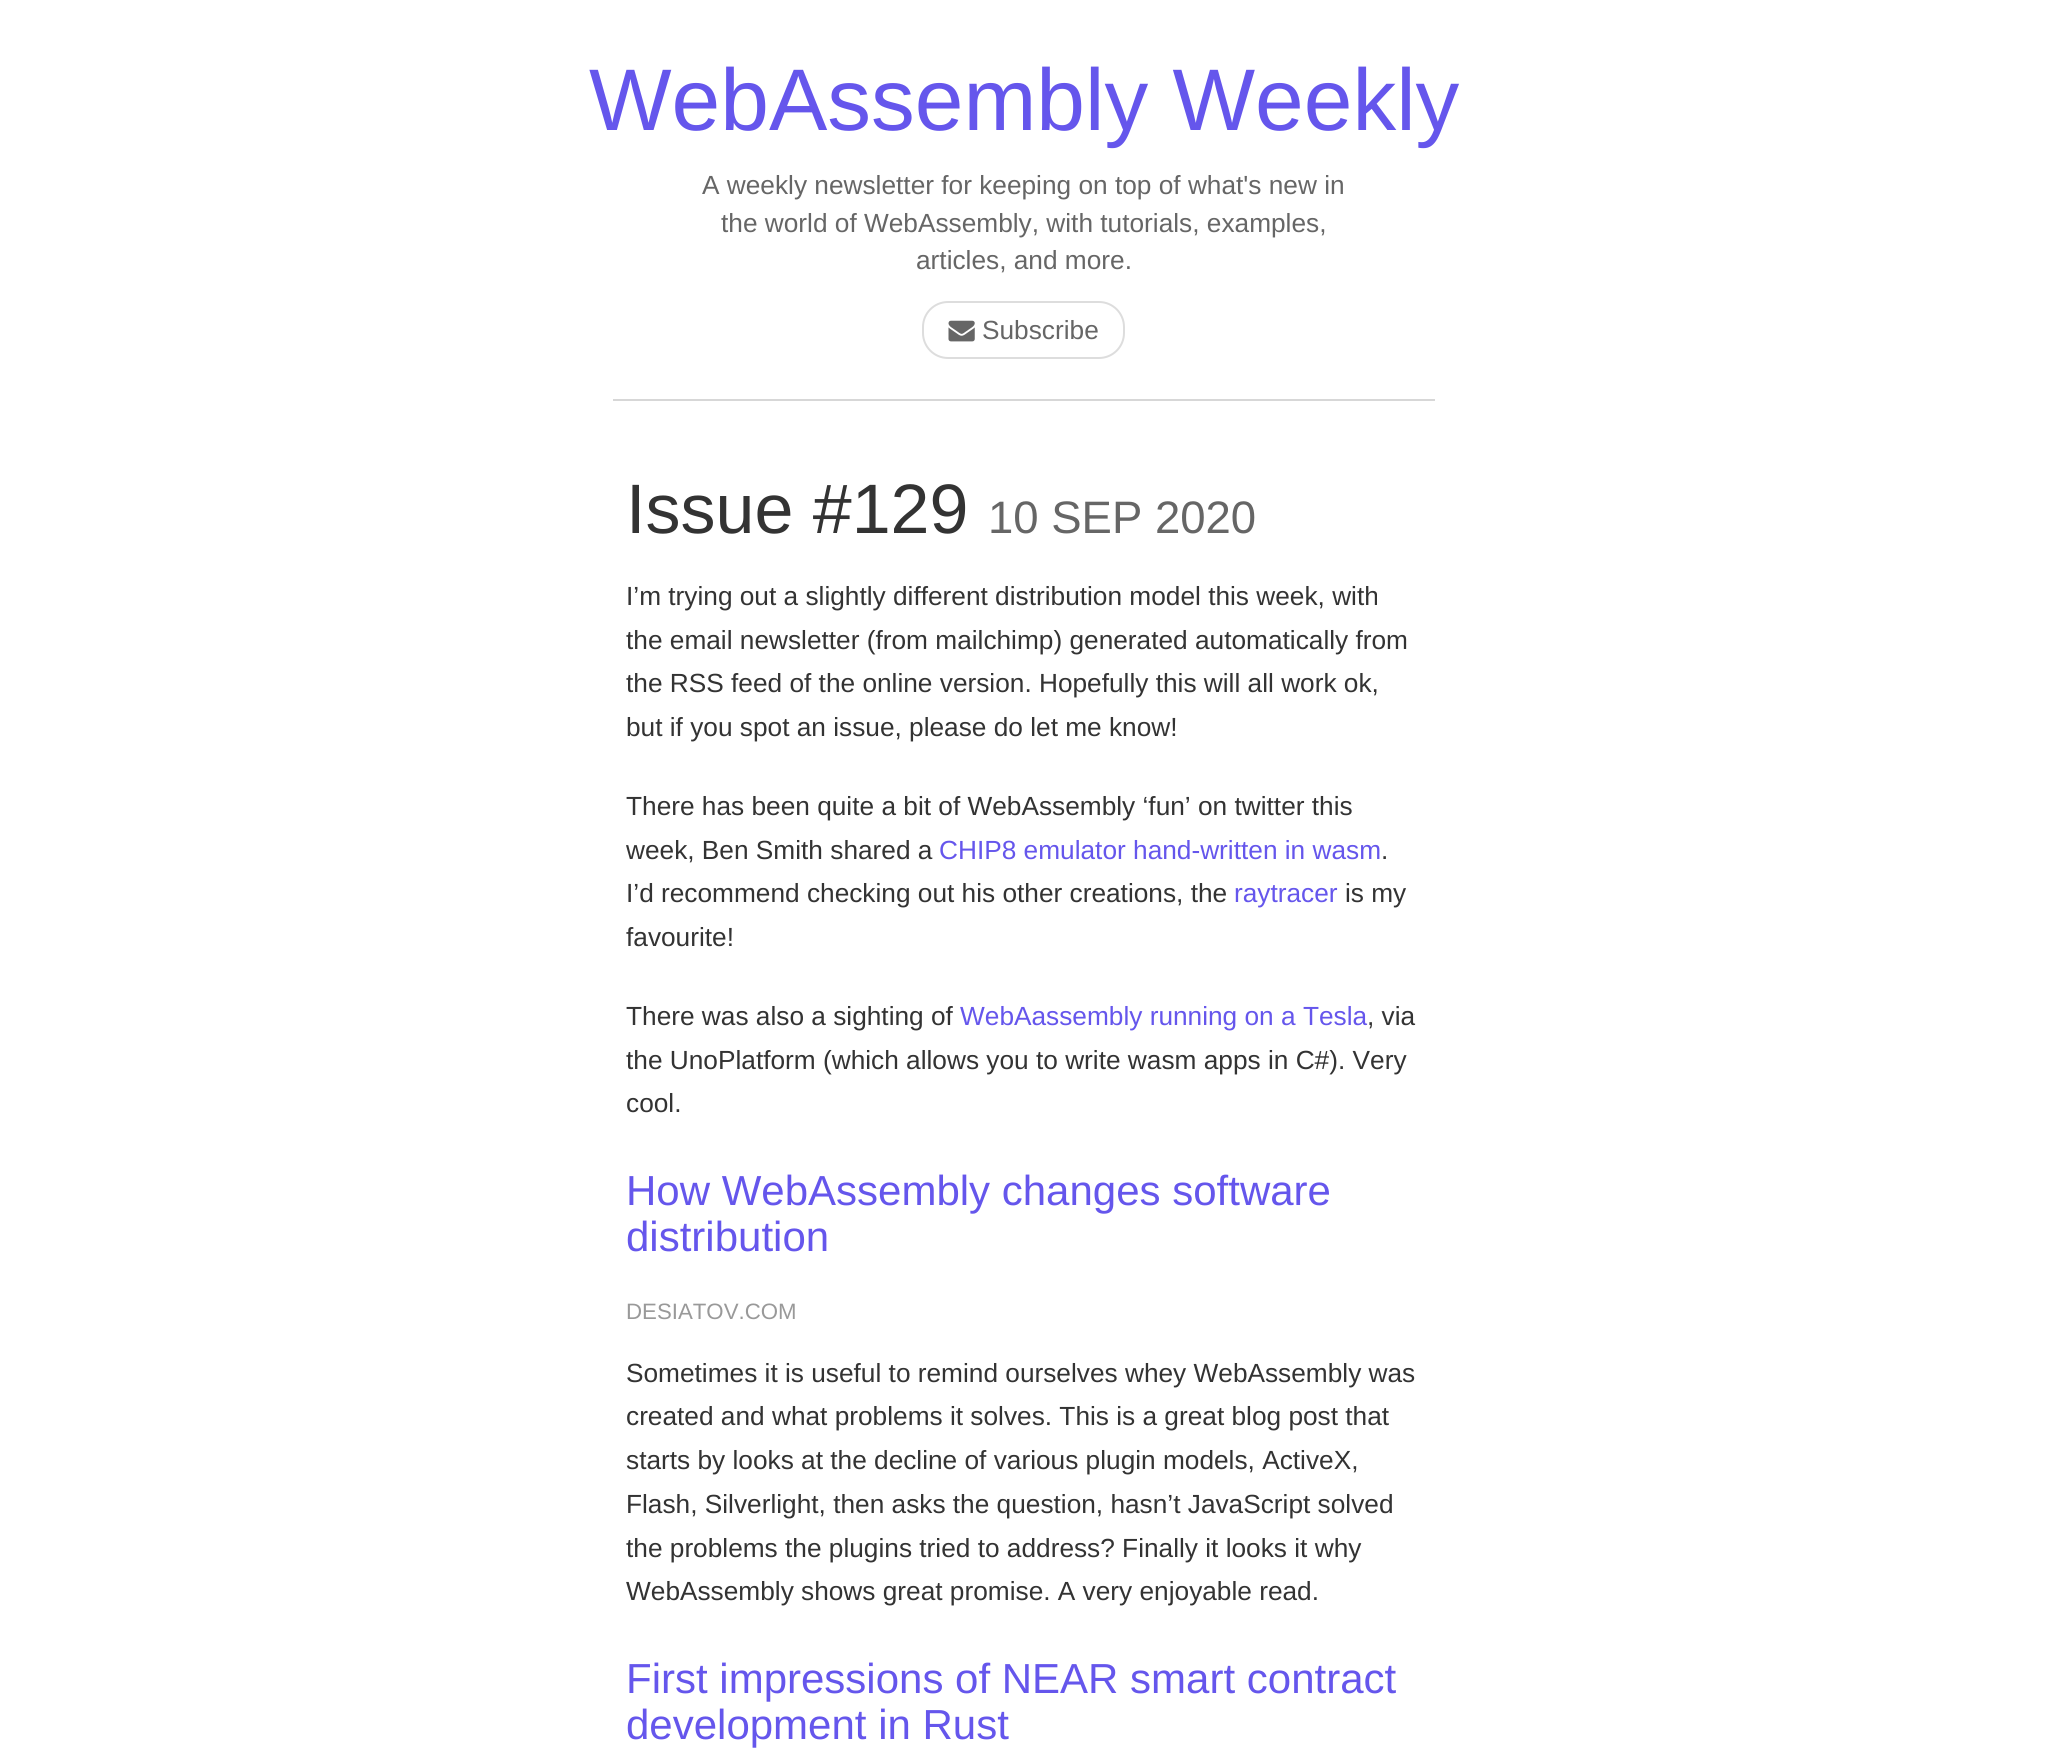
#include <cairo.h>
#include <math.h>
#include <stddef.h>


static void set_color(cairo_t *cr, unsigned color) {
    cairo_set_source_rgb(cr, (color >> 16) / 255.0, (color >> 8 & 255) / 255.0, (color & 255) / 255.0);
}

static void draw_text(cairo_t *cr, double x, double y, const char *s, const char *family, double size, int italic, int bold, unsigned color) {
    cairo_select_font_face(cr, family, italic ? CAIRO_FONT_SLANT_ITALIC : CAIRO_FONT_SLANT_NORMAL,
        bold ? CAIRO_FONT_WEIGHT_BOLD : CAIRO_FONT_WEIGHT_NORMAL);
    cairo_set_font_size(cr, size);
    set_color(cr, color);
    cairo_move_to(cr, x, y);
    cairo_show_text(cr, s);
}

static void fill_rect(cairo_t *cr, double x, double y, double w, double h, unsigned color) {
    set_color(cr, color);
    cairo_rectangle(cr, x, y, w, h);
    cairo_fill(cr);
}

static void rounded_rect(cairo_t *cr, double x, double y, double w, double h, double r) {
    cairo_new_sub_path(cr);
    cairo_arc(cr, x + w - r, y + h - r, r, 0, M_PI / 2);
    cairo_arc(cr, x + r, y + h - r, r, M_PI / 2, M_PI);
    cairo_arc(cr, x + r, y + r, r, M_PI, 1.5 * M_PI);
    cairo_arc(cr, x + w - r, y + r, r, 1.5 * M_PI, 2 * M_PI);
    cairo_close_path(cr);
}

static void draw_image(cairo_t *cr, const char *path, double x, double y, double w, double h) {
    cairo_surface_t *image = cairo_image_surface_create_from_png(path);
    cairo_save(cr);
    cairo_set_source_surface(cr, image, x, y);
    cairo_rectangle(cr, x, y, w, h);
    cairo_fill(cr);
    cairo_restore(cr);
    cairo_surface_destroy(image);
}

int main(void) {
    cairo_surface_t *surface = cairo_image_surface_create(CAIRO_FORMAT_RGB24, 2046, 1755);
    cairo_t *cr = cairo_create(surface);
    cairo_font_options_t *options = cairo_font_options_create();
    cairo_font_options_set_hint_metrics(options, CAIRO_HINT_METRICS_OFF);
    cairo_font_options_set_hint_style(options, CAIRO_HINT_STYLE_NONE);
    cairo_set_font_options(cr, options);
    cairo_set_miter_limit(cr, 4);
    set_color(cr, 0xFFFFFF);
    cairo_paint(cr);
    draw_text(cr, 589, 130, "WebAssembly Weekly", "Liberation Sans", 87.5, 0, 0, 0x6556EC);
    draw_text(cr, 702, 194, "A weekly newsletter for keeping on top of what's new in", "Liberation Sans", 26.25, 0, 0, 0x666666);
    draw_text(cr, 721, 232, "the world of WebAssembly, with tutorials, examples,", "Liberation Sans", 26.25, 0, 0, 0x666666);
    draw_text(cr, 916, 269, "articles, and more.", "Liberation Sans", 26.25, 0, 0, 0x666666);
    rounded_rect(cr, 923, 302, 201, 56, 25);
    set_color(cr, 0xDDDDDD);
    cairo_stroke(cr);
    draw_image(cr, "assets/img1.png", 948, 320, 27, 22);
    draw_text(cr, 982, 339, "Subscribe", "Liberation Sans", 26.25, 0, 0, 0x666666);
    fill_rect(cr, 613, 399, 822, 2, 0xD7D7D7);
    draw_text(cr, 626, 533, "Issue #129", "Liberation Sans", 70, 0, 0, 0x333333);
    draw_text(cr, 988, 533, "10 SEP 2020", "Liberation Sans", 45.5, 0, 0, 0x666666);
    draw_text(cr, 626, 605, "I’m trying out a slightly different distribution model this week, with", "Liberation Sans", 26.25, 0, 0, 0x333333);
    draw_text(cr, 626, 649, "the email newsletter (from mailchimp) generated automatically from", "Liberation Sans", 26.25, 0, 0, 0x333333);
    draw_text(cr, 626, 692, "the RSS feed of the online version. Hopefully this will all work ok,", "Liberation Sans", 26.25, 0, 0, 0x333333);
    draw_text(cr, 626, 736, "but if you spot an issue, please do let me know!", "Liberation Sans", 26.25, 0, 0, 0x333333);
    draw_text(cr, 626, 815, "There has been quite a bit of WebAssembly ‘fun’ on twitter this", "Liberation Sans", 26.25, 0, 0, 0x333333);
    draw_text(cr, 626, 859, "week, Ben Smith shared a", "Liberation Sans", 26.25, 0, 0, 0x333333);
    draw_text(cr, 939, 859, "CHIP8 emulator hand-written in wasm", "Liberation Sans", 26.25, 0, 0, 0x6556EC);
    draw_text(cr, 1381, 859, ".", "Liberation Sans", 26.25, 0, 0, 0x333333);
    draw_text(cr, 626, 902, "I’d recommend checking out his other creations, the", "Liberation Sans", 26.25, 0, 0, 0x333333);
    draw_text(cr, 1234, 902, "raytracer", "Liberation Sans", 26.25, 0, 0, 0x6556EC);
    draw_text(cr, 1345, 902, "is my", "Liberation Sans", 26.25, 0, 0, 0x333333);
    draw_text(cr, 626, 946, "favourite!", "Liberation Sans", 26.25, 0, 0, 0x333333);
    draw_text(cr, 626, 1025, "There was also a sighting of", "Liberation Sans", 26.25, 0, 0, 0x333333);
    draw_text(cr, 960, 1025, "WebAassembly running on a Tesla", "Liberation Sans", 26.25, 0, 0, 0x6556EC);
    draw_text(cr, 1367, 1025, ", via", "Liberation Sans", 26.25, 0, 0, 0x333333);
    draw_text(cr, 626, 1069, "the UnoPlatform (which allows you to write wasm apps in C#). Very", "Liberation Sans", 26.25, 0, 0, 0x333333);
    draw_text(cr, 626, 1112, "cool.", "Liberation Sans", 26.25, 0, 0, 0x333333);
    draw_text(cr, 626, 1205, "How WebAssembly changes software", "Liberation Sans", 42, 0, 0, 0x6556EC);
    draw_text(cr, 626, 1251, "distribution", "Liberation Sans", 42, 0, 0, 0x6556EC);
    draw_text(cr, 626, 1319, "DESIATOV.COM", "Liberation Sans", 22.25, 0, 0, 0x999999);
    draw_text(cr, 626, 1382, "Sometimes it is useful to remind ourselves whey WebAssembly was", "Liberation Sans", 26.25, 0, 0, 0x333333);
    draw_text(cr, 626, 1425, "created and what problems it solves. This is a great blog post that", "Liberation Sans", 26.25, 0, 0, 0x333333);
    draw_text(cr, 626, 1469, "starts by looks at the decline of various plugin models, ActiveX,", "Liberation Sans", 26.25, 0, 0, 0x333333);
    draw_text(cr, 626, 1513, "Flash, Silverlight, then asks the question, hasn’t JavaScript solved", "Liberation Sans", 26.25, 0, 0, 0x333333);
    draw_text(cr, 626, 1557, "the problems the plugins tried to address? Finally it looks it why", "Liberation Sans", 26.25, 0, 0, 0x333333);
    draw_text(cr, 626, 1600, "WebAssembly shows great promise. A very enjoyable read.", "Liberation Sans", 26.25, 0, 0, 0x333333);
    draw_text(cr, 626, 1693, "First impressions of NEAR smart contract", "Liberation Sans", 42, 0, 0, 0x6556EC);
    draw_text(cr, 626, 1739, "development in Rust", "Liberation Sans", 42, 0, 0, 0x6556EC);
    cairo_surface_write_to_png(surface, "output.png");
    cairo_font_options_destroy(options);
    cairo_destroy(cr);
    cairo_surface_destroy(surface);
    return 0;
}
